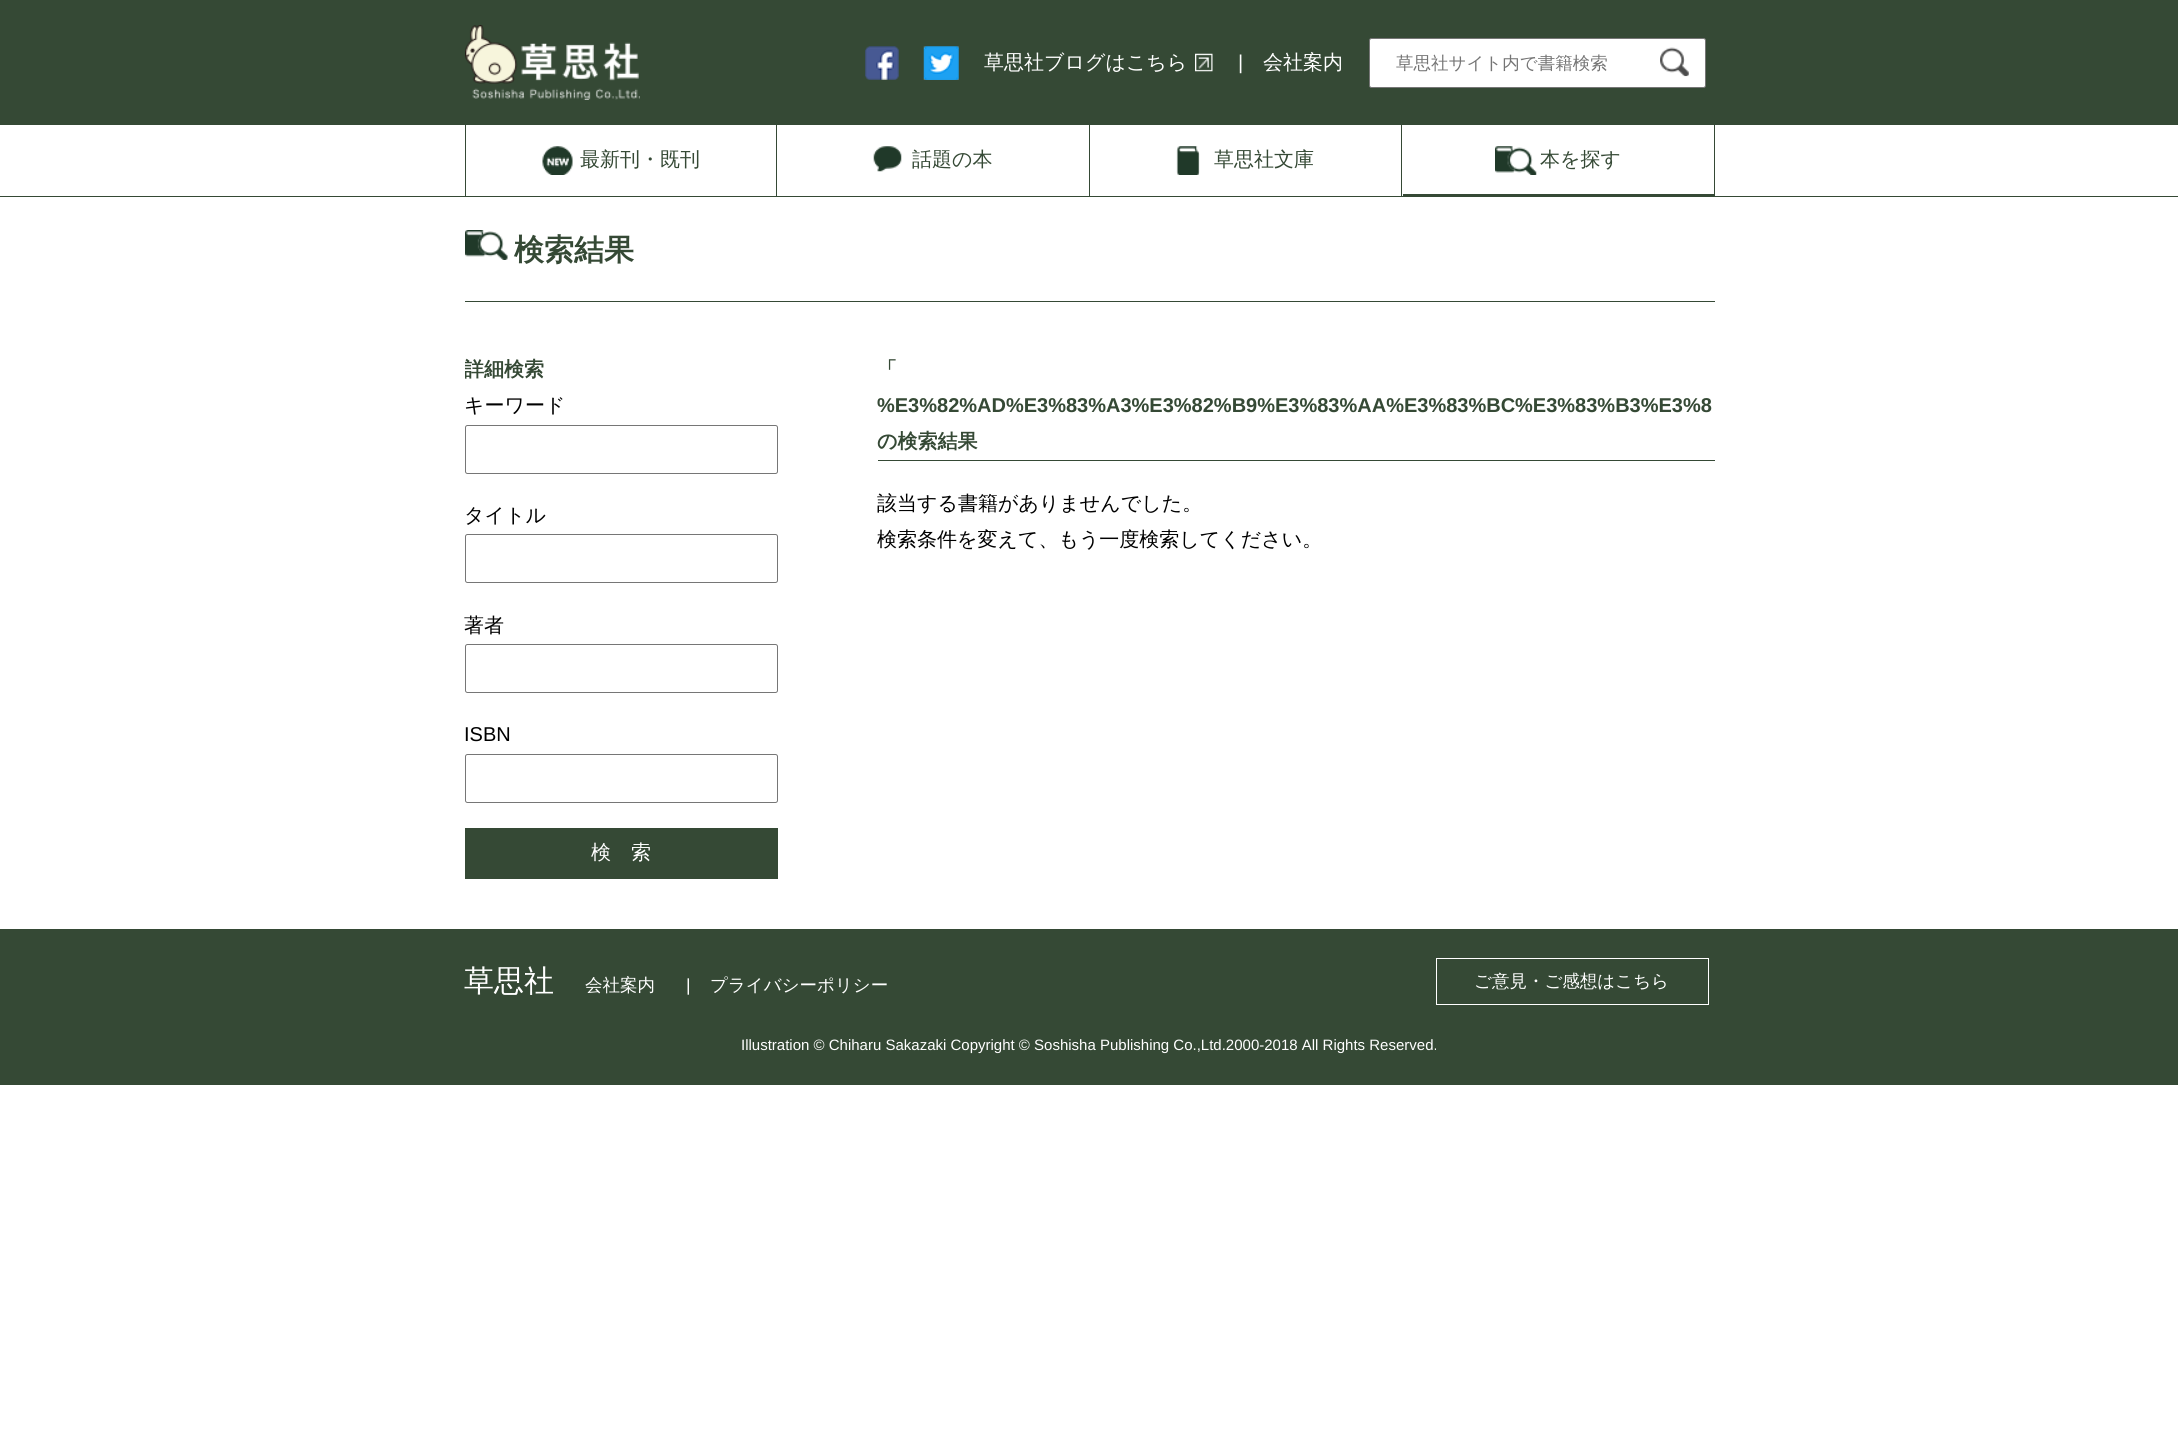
#include <cairo.h>
#include <math.h>
#include <stddef.h>


static void set_color(cairo_t *cr, unsigned color) {
    cairo_set_source_rgb(cr, (color >> 16) / 255.0, (color >> 8 & 255) / 255.0, (color & 255) / 255.0);
}

static void draw_text(cairo_t *cr, double x, double y, const char *s, const char *family, double size, int italic, int bold, unsigned color) {
    cairo_select_font_face(cr, family, italic ? CAIRO_FONT_SLANT_ITALIC : CAIRO_FONT_SLANT_NORMAL,
        bold ? CAIRO_FONT_WEIGHT_BOLD : CAIRO_FONT_WEIGHT_NORMAL);
    cairo_set_font_size(cr, size);
    set_color(cr, color);
    cairo_move_to(cr, x, y);
    cairo_show_text(cr, s);
}

static void fill_rect(cairo_t *cr, double x, double y, double w, double h, unsigned color) {
    set_color(cr, color);
    cairo_rectangle(cr, x, y, w, h);
    cairo_fill(cr);
}

static void rounded_rect(cairo_t *cr, double x, double y, double w, double h, double r) {
    cairo_new_sub_path(cr);
    cairo_arc(cr, x + w - r, y + h - r, r, 0, M_PI / 2);
    cairo_arc(cr, x + r, y + h - r, r, M_PI / 2, M_PI);
    cairo_arc(cr, x + r, y + r, r, M_PI, 1.5 * M_PI);
    cairo_arc(cr, x + w - r, y + r, r, 1.5 * M_PI, 2 * M_PI);
    cairo_close_path(cr);
}

static void draw_image(cairo_t *cr, const char *path, double x, double y, double w, double h) {
    cairo_surface_t *image = cairo_image_surface_create_from_png(path);
    cairo_save(cr);
    cairo_set_source_surface(cr, image, x, y);
    cairo_rectangle(cr, x, y, w, h);
    cairo_fill(cr);
    cairo_restore(cr);
    cairo_surface_destroy(image);
}

int main(void) {
    cairo_surface_t *surface = cairo_image_surface_create(CAIRO_FORMAT_RGB24, 2178, 1437);
    cairo_t *cr = cairo_create(surface);
    cairo_font_options_t *options = cairo_font_options_create();
    cairo_font_options_set_hint_metrics(options, CAIRO_HINT_METRICS_OFF);
    cairo_font_options_set_hint_style(options, CAIRO_HINT_STYLE_NONE);
    cairo_set_font_options(cr, options);
    cairo_set_miter_limit(cr, 4);
    set_color(cr, 0xFFFFFF);
    cairo_paint(cr);
    fill_rect(cr, 0, 0, 2178, 125, 0x354935);
    draw_image(cr, "assets/img1.png", 465, 25, 175, 75);
    draw_image(cr, "assets/img2.png", 865, 46, 34, 34);
    draw_image(cr, "assets/img3.png", 923, 46, 36, 34);
    draw_text(cr, 984, 69, "草思社ブログはこちら", "WenQuanYi Zen Hei Medium", 20, 0, 0, 0xFFFFFF);
    draw_image(cr, "assets/img4.png", 1195, 53, 18, 19);
    draw_text(cr, 1238, 69, "|", "Liberation Sans", 20, 0, 0, 0xFFFFFF);
    draw_text(cr, 1263, 69, "会社案内", "WenQuanYi Zen Hei Medium", 20, 0, 0, 0xFFFFFF);
    rounded_rect(cr, 1369.5, 38.5, 336, 49, 2);
    cairo_fill_preserve(cr);
    set_color(cr, 0x767676);
    cairo_set_line_width(cr, 1);
    cairo_stroke(cr);
    draw_text(cr, 1396, 69, "草思社サイト内で書籍検索", "WenQuanYi Zen Hei Medium", 17.5, 0, 0, 0x757575);
    draw_image(cr, "assets/img5.png", 1660, 47, 29, 30);
    fill_rect(cr, 0, 196, 2178, 1, 0x354935);
    fill_rect(cr, 465, 125, 1, 71, 0x354935);
    fill_rect(cr, 776, 125, 1, 71, 0x354935);
    draw_image(cr, "assets/img6.png", 542, 146, 31, 29);
    draw_text(cr, 580, 166, "最新刊・既刊", "WenQuanYi Zen Hei Medium", 20, 0, 0, 0x354935);
    fill_rect(cr, 1089, 125, 1, 71, 0x354935);
    draw_image(cr, "assets/img7.png", 873, 146, 29, 26);
    draw_text(cr, 912, 166, "話題の本", "WenQuanYi Zen Hei Medium", 20, 0, 0, 0x354935);
    fill_rect(cr, 1401, 125, 1, 71, 0x354935);
    draw_image(cr, "assets/img8.png", 1176, 146, 24, 29);
    draw_text(cr, 1214, 166, "草思社文庫", "WenQuanYi Zen Hei Medium", 20, 0, 0, 0x354935);
    fill_rect(cr, 1714, 125, 1, 71, 0x354935);
    fill_rect(cr, 1403, 194, 311, 2, 0x354935);
    draw_image(cr, "assets/img9.png", 1495, 146, 42, 29);
    draw_text(cr, 1540, 166, "本を探す", "WenQuanYi Zen Hei Medium", 20, 0, 0, 0x354935);
    draw_image(cr, "assets/img10.png", 465, 230, 43, 30);
    fill_rect(cr, 465, 301, 1250, 1, 0x354935);
    draw_text(cr, 514, 260, "検索結果", "WenQuanYi Zen Hei", 30, 0, 1, 0x354935);
    cairo_save(cr);
    cairo_rectangle(cr, 465, 303, 1250, 626);
    cairo_clip(cr);
    draw_text(cr, 464, 376, "詳細検索", "WenQuanYi Zen Hei", 20, 0, 1, 0x354935);
    cairo_restore(cr);
    draw_text(cr, 464, 412, "キーワード", "WenQuanYi Zen Hei Medium", 20, 0, 0, 0x000000);
    rounded_rect(cr, 465.5, 425.5, 312, 48, 2);
    set_color(cr, 0x767676);
    cairo_stroke(cr);
    draw_text(cr, 464, 522, "タイトル", "WenQuanYi Zen Hei Medium", 20, 0, 0, 0x000000);
    rounded_rect(cr, 465.5, 534.5, 312, 48, 2);
    set_color(cr, 0x767676);
    cairo_stroke(cr);
    draw_text(cr, 464, 632, "著者", "WenQuanYi Zen Hei Medium", 20, 0, 0, 0x000000);
    rounded_rect(cr, 465.5, 644.5, 312, 48, 2);
    set_color(cr, 0x767676);
    cairo_stroke(cr);
    draw_text(cr, 464, 741, "ISBN", "Liberation Sans", 20, 0, 0, 0x000000);
    rounded_rect(cr, 465.5, 754.5, 312, 48, 2);
    set_color(cr, 0x767676);
    cairo_stroke(cr);
    fill_rect(cr, 465, 828, 313, 51, 0x354935);
    draw_text(cr, 591, 859, "検　索", "WenQuanYi Zen Hei Medium", 20, 0, 0, 0xFFFFFF);
    draw_text(cr, 877, 376, "「", "WenQuanYi Zen Hei", 20, 0, 1, 0x354935);
    draw_text(cr, 877, 412, "%E3%82%AD%E3%83%A3%E3%82%B9%E3%83%AA%E3%83%BC%E3%83%B3%E3%8", "Liberation Sans", 20, 0, 1, 0x354935);
    draw_text(cr, 877, 448, "の検索結果", "WenQuanYi Zen Hei", 20, 0, 1, 0x354935);
    fill_rect(cr, 878, 460, 837, 1, 0x354935);
    draw_text(cr, 877, 510, "該当する書籍がありませんでした。", "WenQuanYi Zen Hei Medium", 20, 0, 0, 0x000000);
    draw_text(cr, 877, 546, "検索条件を変えて、もう一度検索してください。", "WenQuanYi Zen Hei Medium", 20, 0, 0, 0x000000);
    fill_rect(cr, 0, 929, 2178, 156, 0x354935);
    draw_text(cr, 464, 991, "草思社", "WenQuanYi Zen Hei Medium", 30, 0, 0, 0xFFFFFF);
    draw_text(cr, 585, 991, "会社案内", "WenQuanYi Zen Hei Medium", 17.5, 0, 0, 0xFFFFFF);
    draw_text(cr, 686, 991, "|", "Liberation Sans", 17.5, 0, 0, 0xFFFFFF);
    draw_text(cr, 710, 991, "プライバシーポリシー", "WenQuanYi Zen Hei Medium", 17.5, 0, 0, 0xFFFFFF);
    cairo_rectangle(cr, 1436.5, 958.5, 272, 46);
    cairo_stroke(cr);
    draw_text(cr, 1474, 987, "ご意見・ご感想はこちら", "WenQuanYi Zen Hei Medium", 17.5, 0, 0, 0xFFFFFF);
    draw_text(cr, 741, 1050, "Illustration © Chiharu Sakazaki Copyright © Soshisha Publishing Co.,Ltd.2000-2018 All Rights Reserved.", "Liberation Sans", 15, 0, 0, 0xFFFFFF);
    cairo_surface_write_to_png(surface, "output.png");
    cairo_font_options_destroy(options);
    cairo_destroy(cr);
    cairo_surface_destroy(surface);
    return 0;
}
